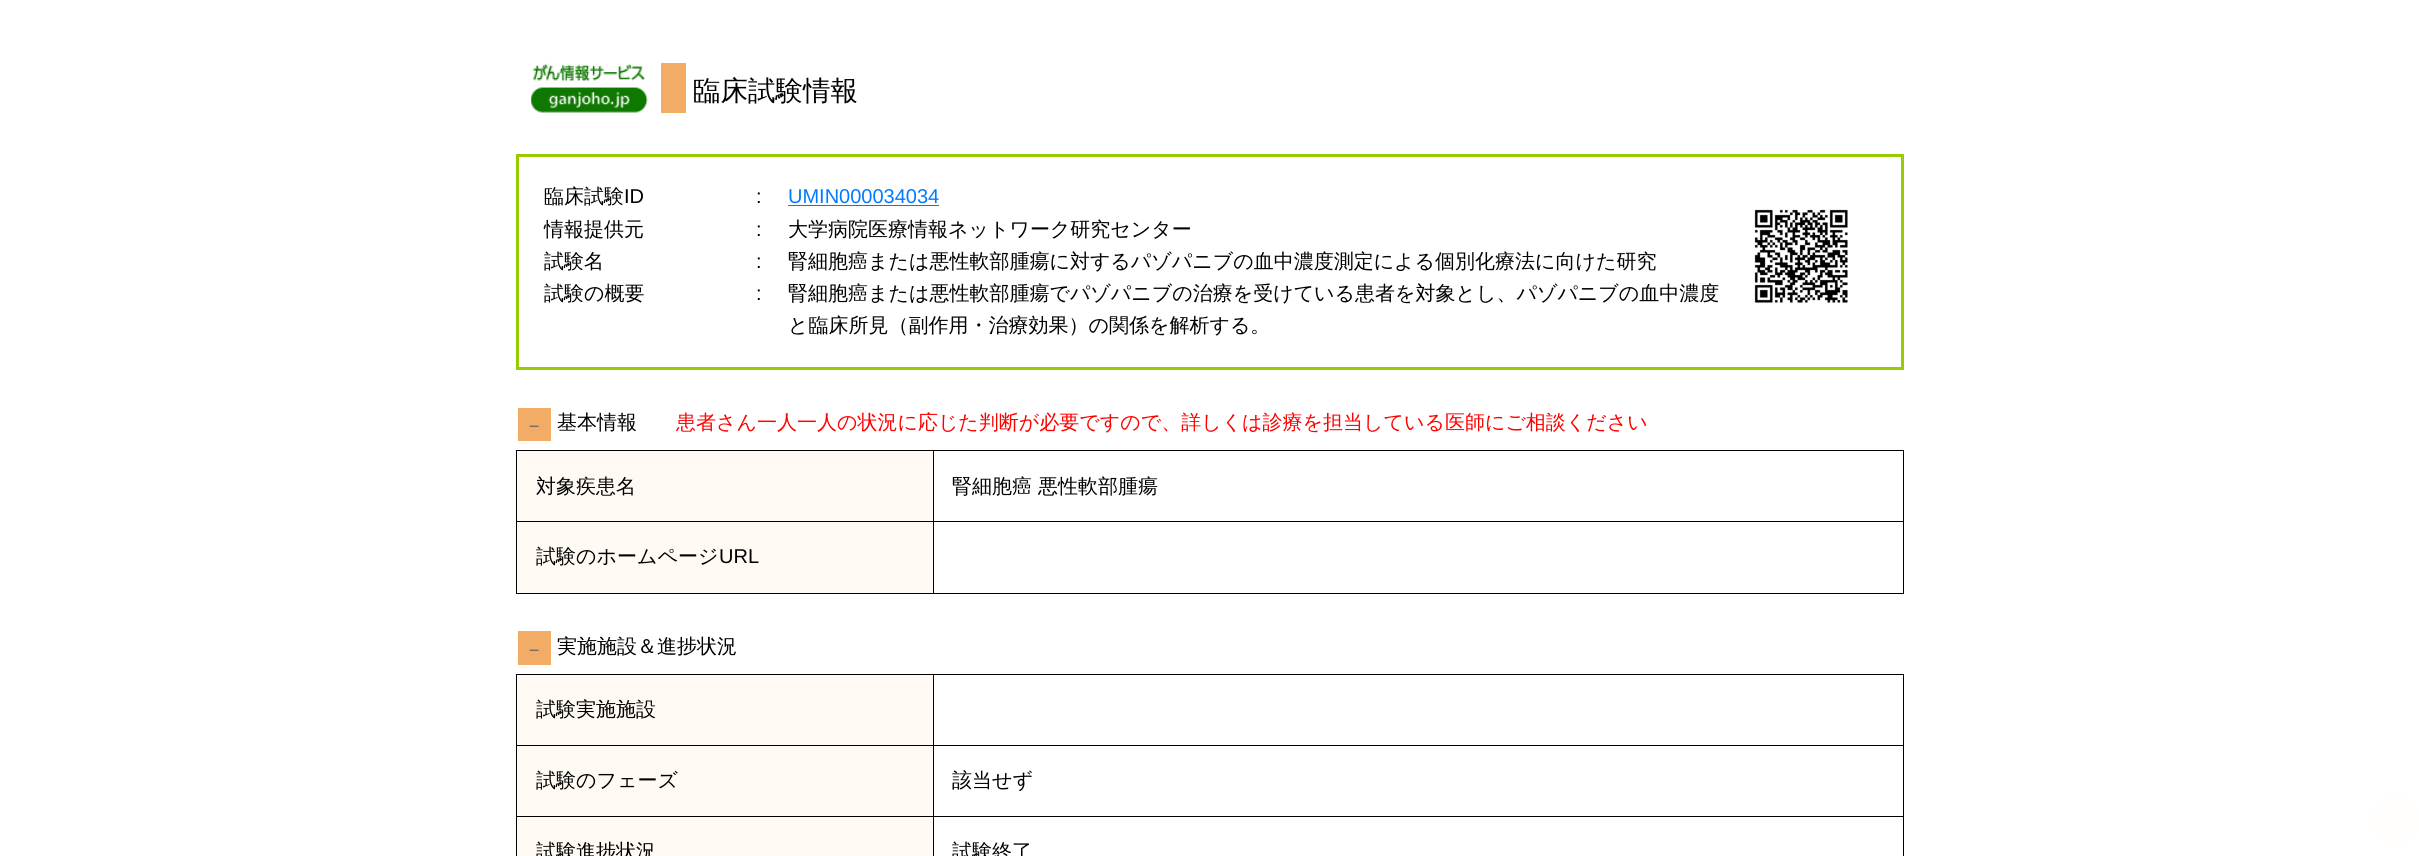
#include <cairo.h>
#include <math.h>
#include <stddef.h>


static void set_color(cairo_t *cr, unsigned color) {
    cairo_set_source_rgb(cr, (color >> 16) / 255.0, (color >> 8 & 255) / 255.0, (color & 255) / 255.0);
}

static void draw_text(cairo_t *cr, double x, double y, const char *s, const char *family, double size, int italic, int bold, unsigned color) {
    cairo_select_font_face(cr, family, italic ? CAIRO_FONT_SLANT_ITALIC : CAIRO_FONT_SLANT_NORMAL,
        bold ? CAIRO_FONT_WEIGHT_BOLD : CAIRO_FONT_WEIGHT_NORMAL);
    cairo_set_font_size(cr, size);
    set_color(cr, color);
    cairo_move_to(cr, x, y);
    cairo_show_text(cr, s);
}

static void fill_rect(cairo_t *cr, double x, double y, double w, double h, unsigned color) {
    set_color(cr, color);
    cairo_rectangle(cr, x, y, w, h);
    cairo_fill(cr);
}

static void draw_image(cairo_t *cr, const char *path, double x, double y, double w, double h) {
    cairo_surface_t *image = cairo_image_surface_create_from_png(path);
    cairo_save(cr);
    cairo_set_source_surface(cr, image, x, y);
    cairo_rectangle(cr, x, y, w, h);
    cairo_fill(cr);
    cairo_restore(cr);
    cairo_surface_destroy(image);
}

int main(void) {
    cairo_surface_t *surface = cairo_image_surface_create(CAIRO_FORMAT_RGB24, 2419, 856);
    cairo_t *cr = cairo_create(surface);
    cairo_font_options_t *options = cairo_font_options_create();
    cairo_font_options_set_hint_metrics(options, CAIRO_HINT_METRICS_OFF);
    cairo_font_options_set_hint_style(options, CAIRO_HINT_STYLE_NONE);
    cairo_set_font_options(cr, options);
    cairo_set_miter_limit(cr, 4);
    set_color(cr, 0xFFFFFF);
    cairo_paint(cr);
    draw_image(cr, "assets/img1.png", 531, 63, 117, 50);
    fill_rect(cr, 661, 63, 25, 50, 0xF3AC66);
    draw_text(cr, 693, 100, "臨床試験情報", "WenQuanYi Zen Hei Medium", 27.5, 0, 0, 0x000000);
    cairo_rectangle(cr, 517.5, 155.5, 1385, 213);
    set_color(cr, 0x99CC00);
    cairo_set_line_width(cr, 3);
    cairo_stroke(cr);
    draw_text(cr, 544, 203, "臨床試験", "WenQuanYi Zen Hei Medium", 20, 0, 0, 0x000000);
    draw_text(cr, 624, 203, "ID", "Liberation Sans", 20, 0, 0, 0x000000);
    draw_text(cr, 756, 203, ":", "Liberation Sans", 20, 0, 0, 0x000000);
    draw_text(cr, 788, 203, "UMIN000034034", "Liberation Sans", 20, 0, 0, 0x007BFF);
    fill_rect(cr, 788, 205, 151, 1, 0x007BFF);
    draw_image(cr, "assets/img2.png", 1754, 209, 94, 94);
    draw_text(cr, 544, 236, "情報提供元", "WenQuanYi Zen Hei Medium", 20, 0, 0, 0x000000);
    draw_text(cr, 756, 236, ":", "Liberation Sans", 20, 0, 0, 0x000000);
    draw_text(cr, 788, 236, "大学病院医療情報ネットワーク研究センター", "WenQuanYi Zen Hei Medium", 20, 0, 0, 0x000000);
    draw_text(cr, 544, 268, "試験名", "WenQuanYi Zen Hei Medium", 20, 0, 0, 0x000000);
    draw_text(cr, 756, 268, ":", "Liberation Sans", 20, 0, 0, 0x000000);
    draw_text(cr, 788, 268, "腎細胞癌または悪性軟部腫瘍に対するパゾパニブの血中濃度測定による個別化療法に向けた研究", "WenQuanYi Zen Hei Medium", 20, 0, 0, 0x000000);
    draw_text(cr, 544, 300, "試験の概要", "WenQuanYi Zen Hei Medium", 20, 0, 0, 0x000000);
    draw_text(cr, 756, 300, ":", "Liberation Sans", 20, 0, 0, 0x000000);
    draw_text(cr, 788, 300, "腎細胞癌または悪性軟部腫瘍でパゾパニブの治療を受けている患者を対象とし、パゾパニブの血中濃度", "WenQuanYi Zen Hei Medium", 20, 0, 0, 0x000000);
    draw_text(cr, 788, 332, "と臨床所見（副作用・治療効果）の関係を解析する。", "WenQuanYi Zen Hei Medium", 20, 0, 0, 0x000000);
    fill_rect(cr, 518, 408, 33, 33, 0xF3AC66);
    draw_text(cr, 524, 432, "－", "WenQuanYi Zen Hei Medium", 20, 0, 0, 0x666666);
    draw_text(cr, 557, 429, "基本情報", "WenQuanYi Zen Hei Medium", 20, 0, 0, 0x000000);
    draw_text(cr, 676, 429, "患者さん一人一人の状況に応じた判断が必要ですので、詳しくは診療を担当している医師にご相談ください", "WenQuanYi Zen Hei Medium", 20, 0, 0, 0xFF0000);
    fill_rect(cr, 518, 451, 415, 70, 0xFFFAF3);
    fill_rect(cr, 933, 450, 971, 1, 0x000000);
    fill_rect(cr, 933, 521, 971, 1, 0x000000);
    fill_rect(cr, 1903, 521, 1, 73, 0x000000);
    fill_rect(cr, 933, 593, 971, 1, 0x000000);
    fill_rect(cr, 933, 521, 1, 73, 0x000000);
    fill_rect(cr, 516, 521, 418, 1, 0x000000);
    fill_rect(cr, 933, 450, 1, 73, 0x000000);
    fill_rect(cr, 516, 450, 418, 1, 0x000000);
    fill_rect(cr, 516, 593, 418, 1, 0x000000);
    fill_rect(cr, 516, 521, 1, 73, 0x000000);
    fill_rect(cr, 516, 450, 1, 73, 0x000000);
    draw_text(cr, 536, 493, "対象疾患名", "WenQuanYi Zen Hei Medium", 20, 0, 0, 0x000000);
    fill_rect(cr, 1903, 450, 1, 73, 0x000000);
    draw_text(cr, 952, 493, "腎細胞癌 悪性軟部腫瘍", "WenQuanYi Zen Hei Medium", 20, 0, 0, 0x000000);
    fill_rect(cr, 518, 522, 415, 71, 0xFFFAF3);
    draw_text(cr, 536, 563, "試験のホームページ", "WenQuanYi Zen Hei Medium", 20, 0, 0, 0x000000);
    draw_text(cr, 719, 563, "URL", "Liberation Sans", 20, 0, 0, 0x000000);
    fill_rect(cr, 518, 631, 33, 34, 0xF3AC66);
    draw_text(cr, 524, 656, "－", "WenQuanYi Zen Hei Medium", 20, 0, 0, 0x666666);
    draw_text(cr, 557, 653, "実施施設＆進捗状況", "WenQuanYi Zen Hei Medium", 20, 0, 0, 0x000000);
    fill_rect(cr, 518, 675, 415, 70, 0xFFFAF3);
    fill_rect(cr, 933, 674, 971, 1, 0x000000);
    fill_rect(cr, 933, 745, 971, 1, 0x000000);
    fill_rect(cr, 933, 816, 971, 1, 0x000000);
    fill_rect(cr, 933, 816, 1, 40, 0x000000);
    fill_rect(cr, 516, 816, 418, 1, 0x000000);
    fill_rect(cr, 933, 745, 1, 73, 0x000000);
    fill_rect(cr, 516, 745, 418, 1, 0x000000);
    fill_rect(cr, 933, 674, 1, 72, 0x000000);
    fill_rect(cr, 516, 674, 418, 1, 0x000000);
    fill_rect(cr, 516, 816, 1, 40, 0x000000);
    fill_rect(cr, 516, 745, 1, 73, 0x000000);
    fill_rect(cr, 516, 674, 1, 72, 0x000000);
    draw_text(cr, 536, 716, "試験実施施設", "WenQuanYi Zen Hei Medium", 20, 0, 0, 0x000000);
    fill_rect(cr, 1903, 816, 1, 40, 0x000000);
    fill_rect(cr, 1903, 745, 1, 73, 0x000000);
    fill_rect(cr, 1903, 674, 1, 72, 0x000000);
    fill_rect(cr, 518, 746, 415, 70, 0xFFFAF3);
    draw_text(cr, 536, 787, "試験のフェーズ", "WenQuanYi Zen Hei Medium", 20, 0, 0, 0x000000);
    draw_text(cr, 952, 787, "該当せず", "WenQuanYi Zen Hei Medium", 20, 0, 0, 0x000000);
    fill_rect(cr, 518, 817, 415, 39, 0xFFFAF3);
    draw_text(cr, 536, 858, "試験進捗状況", "WenQuanYi Zen Hei Medium", 20, 0, 0, 0x000000);
    draw_text(cr, 952, 858, "試験終了", "WenQuanYi Zen Hei Medium", 20, 0, 0, 0x000000);
    set_color(cr, 0xFFFEFC);
    cairo_new_path(cr);
    cairo_arc(cr, 2395, 821, 25, 0, 2 * M_PI);
    cairo_fill(cr);
    cairo_new_path(cr);
    cairo_move_to(cr, 2384, 824);
    cairo_line_to(cr, 2395, 813.5);
    cairo_line_to(cr, 2405.5, 824);
    set_color(cr, 0xFFFFFF);
    cairo_set_line_width(cr, 3.7);
    cairo_set_line_cap(cr, CAIRO_LINE_CAP_ROUND);
    cairo_set_line_join(cr, CAIRO_LINE_JOIN_ROUND);
    cairo_stroke(cr);
    cairo_surface_write_to_png(surface, "output.png");
    cairo_font_options_destroy(options);
    cairo_destroy(cr);
    cairo_surface_destroy(surface);
    return 0;
}
